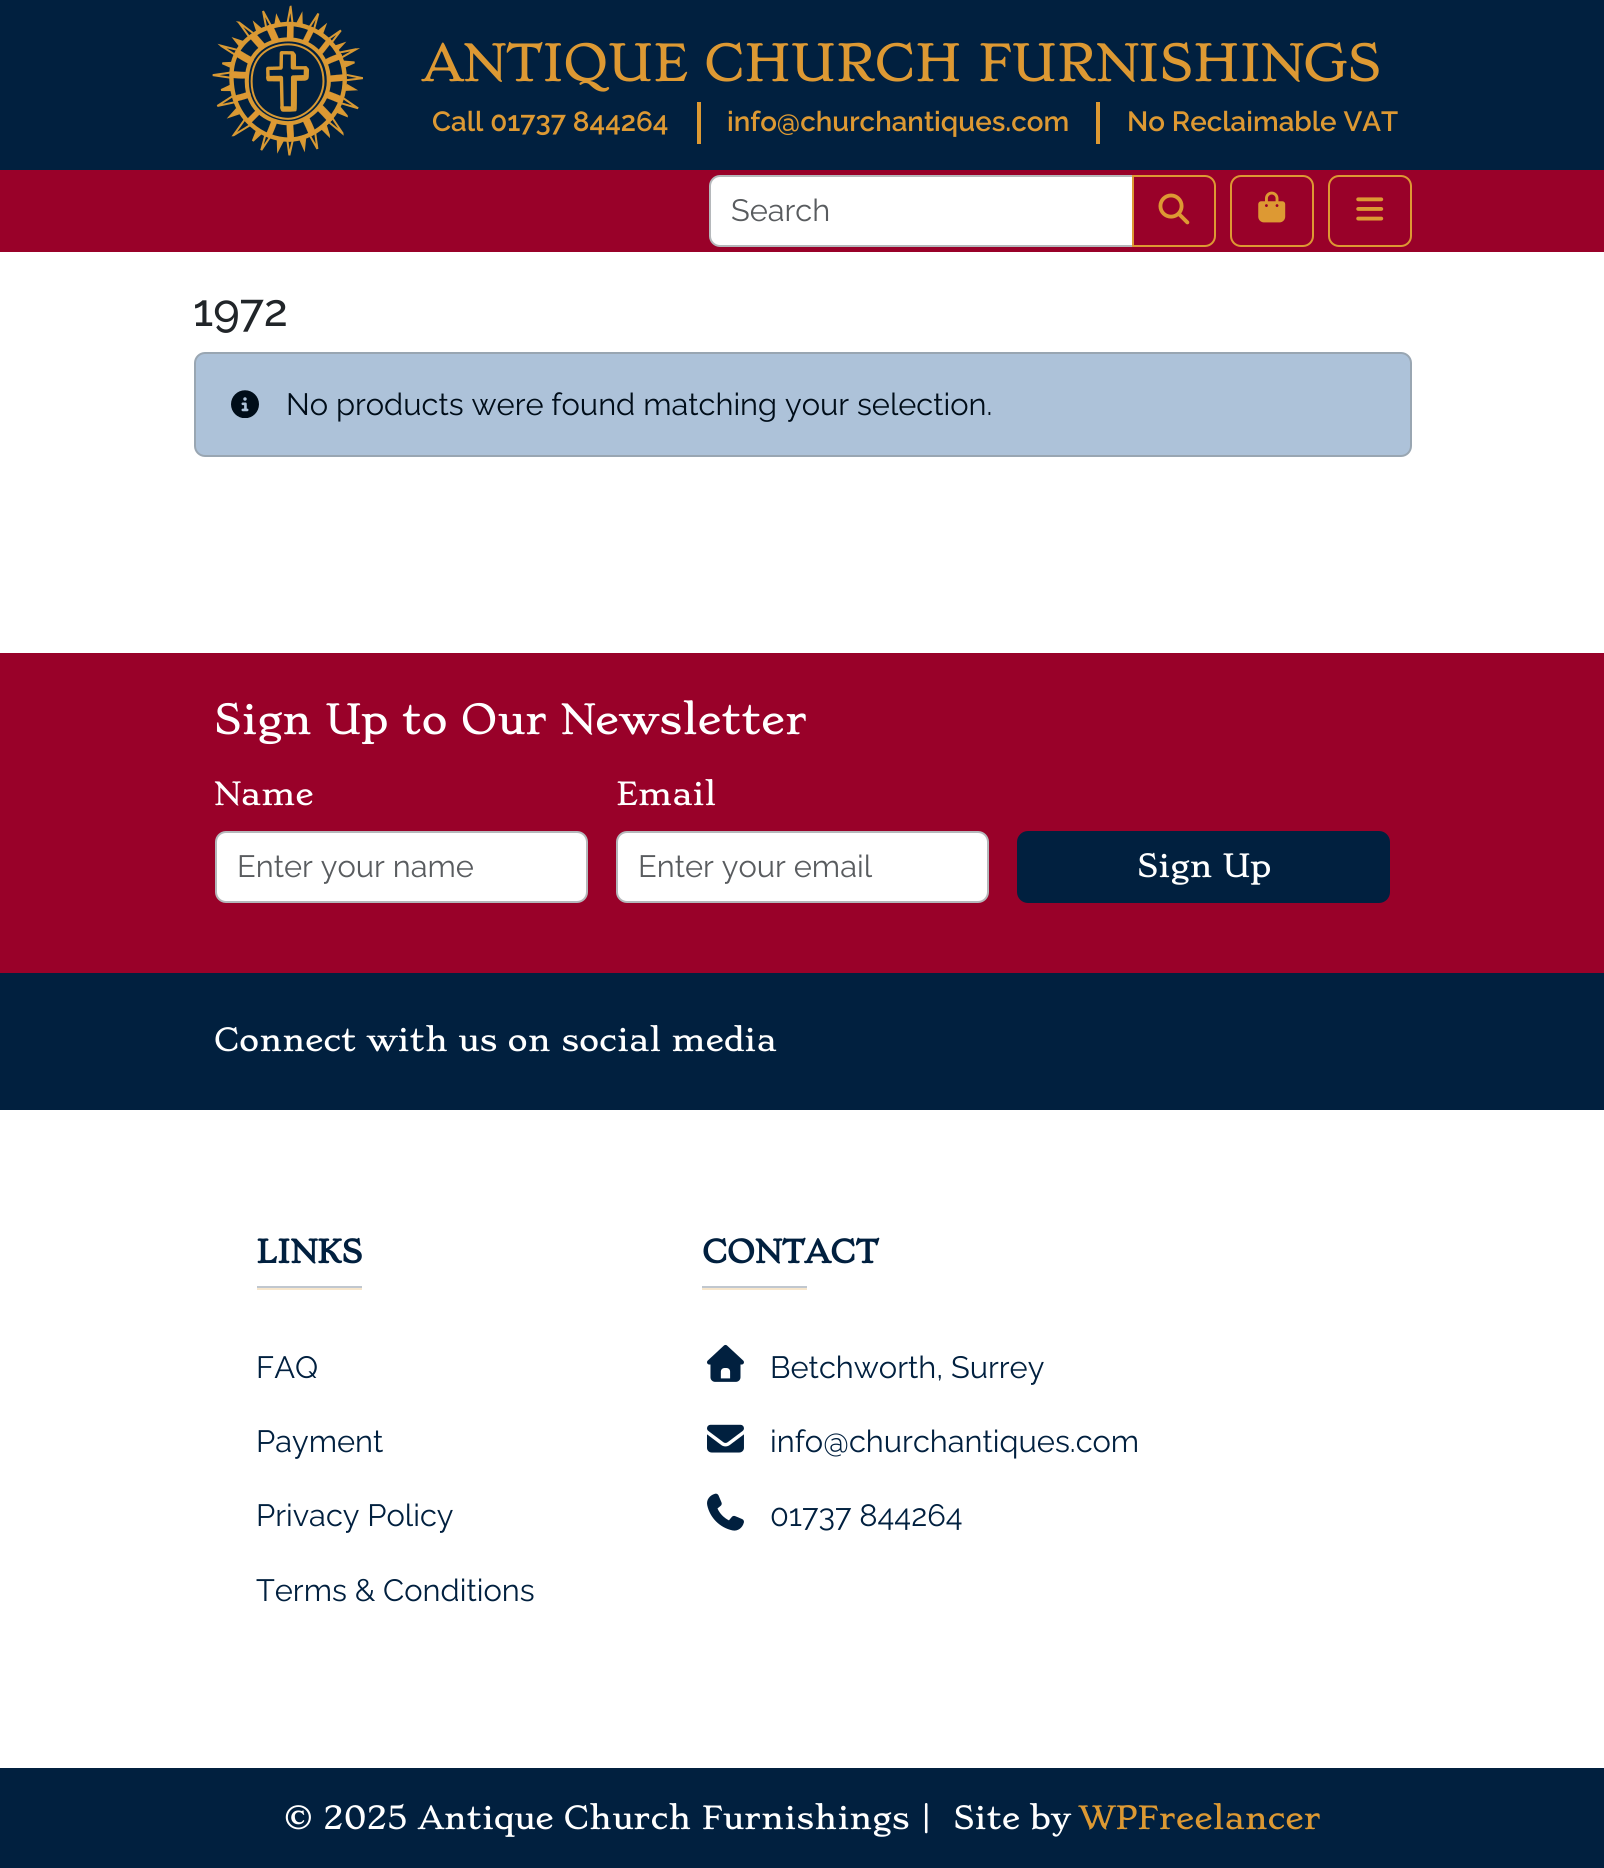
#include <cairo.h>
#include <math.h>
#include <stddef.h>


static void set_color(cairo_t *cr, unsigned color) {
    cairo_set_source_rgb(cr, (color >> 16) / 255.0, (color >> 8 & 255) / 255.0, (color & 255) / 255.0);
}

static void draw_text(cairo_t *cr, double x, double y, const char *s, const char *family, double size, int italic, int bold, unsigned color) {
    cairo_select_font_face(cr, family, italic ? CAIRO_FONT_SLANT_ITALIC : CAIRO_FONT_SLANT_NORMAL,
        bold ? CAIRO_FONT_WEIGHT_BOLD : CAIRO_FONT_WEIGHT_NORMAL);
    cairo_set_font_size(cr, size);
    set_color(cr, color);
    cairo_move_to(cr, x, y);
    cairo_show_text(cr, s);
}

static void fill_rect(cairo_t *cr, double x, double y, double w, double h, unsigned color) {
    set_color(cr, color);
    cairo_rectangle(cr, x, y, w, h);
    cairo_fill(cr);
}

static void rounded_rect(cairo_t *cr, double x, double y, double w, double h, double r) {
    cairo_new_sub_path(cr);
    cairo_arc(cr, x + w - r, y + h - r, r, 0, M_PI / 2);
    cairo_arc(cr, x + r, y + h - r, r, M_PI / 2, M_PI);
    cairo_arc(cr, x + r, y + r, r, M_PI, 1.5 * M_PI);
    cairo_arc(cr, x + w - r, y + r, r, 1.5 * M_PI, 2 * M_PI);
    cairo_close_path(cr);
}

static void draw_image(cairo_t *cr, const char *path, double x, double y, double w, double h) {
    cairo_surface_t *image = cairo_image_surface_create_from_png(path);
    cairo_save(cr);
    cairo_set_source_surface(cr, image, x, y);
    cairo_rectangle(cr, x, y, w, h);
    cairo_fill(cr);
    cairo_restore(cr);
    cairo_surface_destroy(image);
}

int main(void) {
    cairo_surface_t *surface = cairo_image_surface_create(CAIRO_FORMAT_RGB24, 1604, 1868);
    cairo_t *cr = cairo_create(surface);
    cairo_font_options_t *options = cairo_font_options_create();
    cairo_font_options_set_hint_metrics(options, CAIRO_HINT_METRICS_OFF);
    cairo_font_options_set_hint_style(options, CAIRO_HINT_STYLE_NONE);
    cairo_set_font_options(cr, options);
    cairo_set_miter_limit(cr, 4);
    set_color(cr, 0xFFFFFF);
    cairo_paint(cr);
    fill_rect(cr, 0, 0, 1604, 170, 0x01203F);
    draw_image(cr, "assets/img1.png", 212, 5, 151, 151);
    draw_text(cr, 422, 81, "ANTIQUE CHURCH FURNISHINGS", "Stoke", 49.25, 0, 0, 0xDD9933);
    fill_rect(cr, 697, 102, 4, 42, 0xDD9933);
    draw_text(cr, 432, 131, "Call 01737 844264", "Raleway SemiBold", 27.75, 0, 0, 0xDD9933);
    fill_rect(cr, 1096, 102, 4, 42, 0xDD9933);
    draw_text(cr, 727, 131, "info@churchantiques.com", "Raleway SemiBold", 27.75, 0, 0, 0xDD9933);
    draw_text(cr, 1127, 131, "No Reclaimable VAT", "Raleway SemiBold", 27.75, 0, 0, 0xDD9933);
    fill_rect(cr, 0, 170, 1604, 82, 0x990129);
    set_color(cr, 0xFFFFFF);
    cairo_new_path(cr);
    cairo_move_to(cr, 720, 176);
    cairo_line_to(cr, 1133, 176);
    cairo_line_to(cr, 1133, 246);
    cairo_line_to(cr, 720, 246);
    cairo_curve_to(cr, 714.5, 246, 710, 241.5, 710, 236);
    cairo_line_to(cr, 710, 186);
    cairo_curve_to(cr, 710, 180.5, 714.5, 176, 720, 176);
    cairo_close_path(cr);
    cairo_fill_preserve(cr);
    set_color(cr, 0xB5B8BB);
    cairo_stroke(cr);
    draw_text(cr, 731, 221, "Search", "Raleway", 30.8, 0, 0, 0x595C5F);
    cairo_new_path(cr);
    cairo_move_to(cr, 1133, 176);
    cairo_line_to(cr, 1205, 176);
    cairo_curve_to(cr, 1210.5, 176, 1215, 180.5, 1215, 186);
    cairo_line_to(cr, 1215, 236);
    cairo_curve_to(cr, 1215, 241.5, 1210.5, 246, 1205, 246);
    cairo_line_to(cr, 1133, 246);
    cairo_close_path(cr);
    set_color(cr, 0xDD9933);
    cairo_stroke(cr);
    draw_image(cr, "assets/img2.png", 1158, 193, 32, 32);
    rounded_rect(cr, 1231, 176, 82, 70, 10);
    cairo_stroke(cr);
    draw_image(cr, "assets/img3.png", 1258, 191, 28, 32);
    rounded_rect(cr, 1329, 176, 82, 70, 10);
    cairo_stroke(cr);
    draw_image(cr, "assets/img4.png", 1356, 197, 28, 24);
    draw_text(cr, 193, 326, "1972", "Raleway Medium", 45, 0, 0, 0x212529);
    set_color(cr, 0xADC2D9);
    rounded_rect(cr, 195, 353, 1216, 103, 10);
    cairo_fill_preserve(cr);
    set_color(cr, 0x99A6B2);
    cairo_stroke(cr);
    draw_image(cr, "assets/img5.png", 231, 390, 28, 28);
    draw_text(cr, 286, 415, "No products were found matching your selection.", "Raleway", 30.8, 0, 0, 0x000D19);
    fill_rect(cr, 0, 653, 1604, 320, 0x990129);
    draw_text(cr, 214, 734, "Sign Up to Our Newsletter", "Stoke", 40, 0, 0, 0xFFFFFF);
    draw_text(cr, 214, 805, "Name", "Stoke", 30.8, 0, 0, 0xFFFFFF);
    rounded_rect(cr, 216, 832, 371, 70, 10);
    cairo_fill_preserve(cr);
    set_color(cr, 0xB5B8BB);
    cairo_stroke(cr);
    draw_text(cr, 237, 877, "Enter your name", "Raleway", 30.8, 0, 0, 0x595C5F);
    draw_text(cr, 616, 805, "Email", "Stoke", 30.8, 0, 0, 0xFFFFFF);
    rounded_rect(cr, 617, 832, 371, 70, 10);
    cairo_fill_preserve(cr);
    set_color(cr, 0xB5B8BB);
    cairo_stroke(cr);
    draw_text(cr, 638, 877, "Enter your email", "Raleway", 30.8, 0, 0, 0x595C5F);
    set_color(cr, 0x01203F);
    rounded_rect(cr, 1018, 832, 371, 70, 10);
    cairo_fill_preserve(cr);
    cairo_stroke(cr);
    draw_text(cr, 1137, 877, "Sign Up", "Stoke", 30.8, 0, 0, 0xFFFFFF);
    fill_rect(cr, 0, 973, 1604, 137, 0x01203F);
    draw_text(cr, 214, 1051, "Connect with us on social media", "Stoke", 30.8, 0, 0, 0xFFFFFF);
    draw_text(cr, 256, 1263, "LINKS", "Stoke", 30.8, 0, 1, 0x01203F);
    fill_rect(cr, 257, 1288, 105, 2, 0xF7E6CC);
    fill_rect(cr, 257, 1286, 105, 2, 0xC0C7CF);
    draw_text(cr, 256, 1378, "FAQ", "Raleway", 30.8, 0, 0, 0x01203F);
    draw_text(cr, 256, 1452, "Payment", "Raleway", 30.8, 0, 0, 0x01203F);
    draw_text(cr, 256, 1526, "Privacy Policy", "Raleway", 30.8, 0, 0, 0x01203F);
    draw_text(cr, 256, 1601, "Terms & Conditions", "Raleway", 30.8, 0, 0, 0x01203F);
    draw_text(cr, 702, 1263, "CONTACT", "Stoke", 30.8, 0, 1, 0x01203F);
    fill_rect(cr, 702, 1288, 105, 2, 0xF7E6CC);
    fill_rect(cr, 702, 1286, 105, 2, 0xC0C7CF);
    draw_image(cr, "assets/img6.png", 707, 1344, 37, 38);
    draw_text(cr, 770, 1378, "Betchworth, Surrey", "Raleway", 30.8, 0, 0, 0x01203F);
    draw_image(cr, "assets/img7.png", 707, 1424, 37, 29);
    draw_text(cr, 770, 1452, "info@churchantiques.com", "Raleway", 30.8, 0, 0, 0x01203F);
    draw_image(cr, "assets/img8.png", 707, 1493, 37, 38);
    draw_text(cr, 770, 1526, "01737 844264", "Raleway", 30.8, 0, 0, 0x01203F);
    fill_rect(cr, 0, 1768, 1604, 100, 0x01203F);
    draw_text(cr, 284, 1829, "© 2025 Antique Church Furnishings |  Site by", "Stoke", 30.8, 0, 0, 0xFFFFFF);
    draw_text(cr, 1079, 1829, "WPFreelancer", "Stoke", 30.8, 0, 0, 0xDD9933);
    cairo_surface_write_to_png(surface, "output.png");
    cairo_font_options_destroy(options);
    cairo_destroy(cr);
    cairo_surface_destroy(surface);
    return 0;
}
